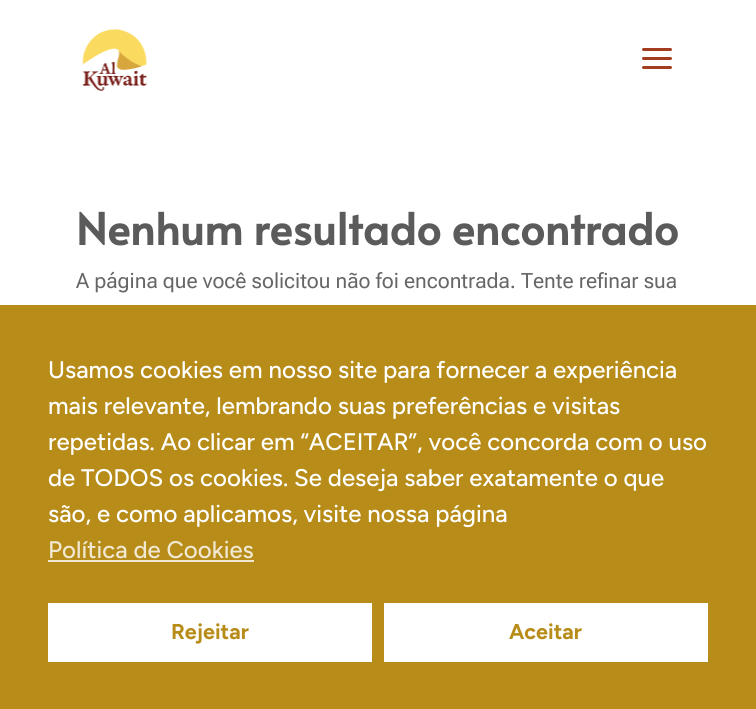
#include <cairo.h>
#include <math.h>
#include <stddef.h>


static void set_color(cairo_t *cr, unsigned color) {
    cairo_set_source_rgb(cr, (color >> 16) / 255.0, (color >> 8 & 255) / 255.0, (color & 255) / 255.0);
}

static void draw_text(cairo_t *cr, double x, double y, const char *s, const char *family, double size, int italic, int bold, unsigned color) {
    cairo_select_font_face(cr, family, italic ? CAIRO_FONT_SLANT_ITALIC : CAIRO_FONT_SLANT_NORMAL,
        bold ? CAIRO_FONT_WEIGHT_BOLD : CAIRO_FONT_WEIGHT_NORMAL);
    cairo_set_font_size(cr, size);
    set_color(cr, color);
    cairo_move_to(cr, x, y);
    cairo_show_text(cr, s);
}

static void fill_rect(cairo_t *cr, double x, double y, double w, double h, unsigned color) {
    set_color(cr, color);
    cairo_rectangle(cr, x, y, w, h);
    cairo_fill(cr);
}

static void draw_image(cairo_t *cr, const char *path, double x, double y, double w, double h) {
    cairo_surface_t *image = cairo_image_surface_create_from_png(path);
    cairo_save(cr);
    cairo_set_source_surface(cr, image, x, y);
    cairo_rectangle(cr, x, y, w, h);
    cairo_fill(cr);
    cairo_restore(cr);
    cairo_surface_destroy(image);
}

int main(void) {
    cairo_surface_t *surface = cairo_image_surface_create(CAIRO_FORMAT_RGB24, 756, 709);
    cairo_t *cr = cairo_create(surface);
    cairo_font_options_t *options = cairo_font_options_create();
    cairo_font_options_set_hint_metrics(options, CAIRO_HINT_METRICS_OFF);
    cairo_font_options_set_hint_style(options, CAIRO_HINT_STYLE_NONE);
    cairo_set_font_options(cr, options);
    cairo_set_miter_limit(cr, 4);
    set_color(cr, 0xFFFFFF);
    cairo_paint(cr);
    draw_image(cr, "assets/img1.png", 82, 29, 65, 62);
    draw_image(cr, "assets/img2.png", 642, 48, 30, 21);
    draw_text(cr, 76, 245, "Nenhum resultado encontrado", "Alata", 43.5, 0, 1, 0x5B5B5B);
    draw_text(cr, 76, 288, "A página que você solicitou não foi encontrada. Tente refinar sua", "Roboto Flex", 21, 0, 0, 0x666666);
    fill_rect(cr, 0, 305, 756, 404, 0xB78C19);
    draw_text(cr, 48, 378, "Usamos cookies em nosso site para fornecer a experiência", "Figtree Medium", 24, 0, 0, 0xFFFFFF);
    draw_text(cr, 48, 414, "mais relevante, lembrando suas preferências e visitas", "Figtree Medium", 24, 0, 0, 0xFFFFFF);
    draw_text(cr, 48, 450, "repetidas. Ao clicar em “ACEITAR”, você concorda com o uso", "Figtree Medium", 24, 0, 0, 0xFFFFFF);
    draw_text(cr, 48, 486, "de TODOS os cookies. Se deseja saber exatamente o que", "Figtree Medium", 24, 0, 0, 0xFFFFFF);
    draw_text(cr, 48, 522, "são, e como aplicamos, visite nossa página", "Figtree Medium", 24, 0, 0, 0xFFFFFF);
    draw_text(cr, 48, 558, "Política de Cookies", "Figtree Medium", 24, 0, 0, 0xF1E8D1);
    fill_rect(cr, 48, 560, 206, 2, 0xF1E8D1);
    fill_rect(cr, 48, 603, 324, 59, 0xFFFFFF);
    draw_text(cr, 171, 639, "Rejeitar", "Figtree", 21.5, 0, 1, 0xB78C19);
    fill_rect(cr, 384, 603, 324, 59, 0xFFFFFF);
    draw_text(cr, 509, 639, "Aceitar", "Figtree", 21.5, 0, 1, 0xB78C19);
    cairo_surface_write_to_png(surface, "output.png");
    cairo_font_options_destroy(options);
    cairo_destroy(cr);
    cairo_surface_destroy(surface);
    return 0;
}
